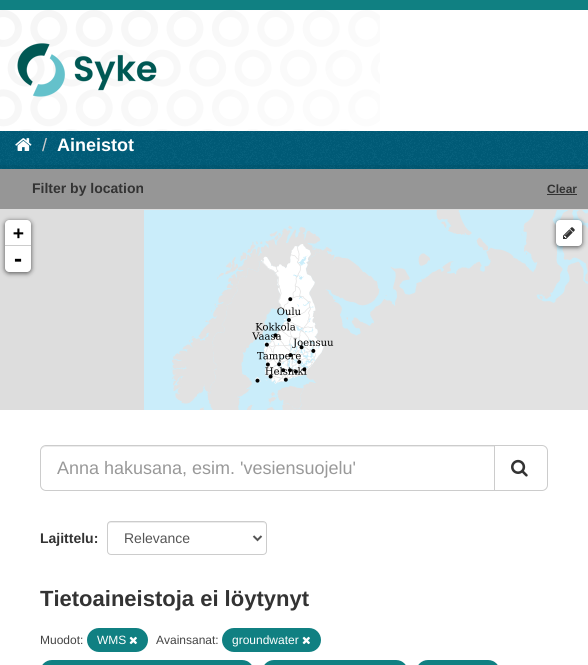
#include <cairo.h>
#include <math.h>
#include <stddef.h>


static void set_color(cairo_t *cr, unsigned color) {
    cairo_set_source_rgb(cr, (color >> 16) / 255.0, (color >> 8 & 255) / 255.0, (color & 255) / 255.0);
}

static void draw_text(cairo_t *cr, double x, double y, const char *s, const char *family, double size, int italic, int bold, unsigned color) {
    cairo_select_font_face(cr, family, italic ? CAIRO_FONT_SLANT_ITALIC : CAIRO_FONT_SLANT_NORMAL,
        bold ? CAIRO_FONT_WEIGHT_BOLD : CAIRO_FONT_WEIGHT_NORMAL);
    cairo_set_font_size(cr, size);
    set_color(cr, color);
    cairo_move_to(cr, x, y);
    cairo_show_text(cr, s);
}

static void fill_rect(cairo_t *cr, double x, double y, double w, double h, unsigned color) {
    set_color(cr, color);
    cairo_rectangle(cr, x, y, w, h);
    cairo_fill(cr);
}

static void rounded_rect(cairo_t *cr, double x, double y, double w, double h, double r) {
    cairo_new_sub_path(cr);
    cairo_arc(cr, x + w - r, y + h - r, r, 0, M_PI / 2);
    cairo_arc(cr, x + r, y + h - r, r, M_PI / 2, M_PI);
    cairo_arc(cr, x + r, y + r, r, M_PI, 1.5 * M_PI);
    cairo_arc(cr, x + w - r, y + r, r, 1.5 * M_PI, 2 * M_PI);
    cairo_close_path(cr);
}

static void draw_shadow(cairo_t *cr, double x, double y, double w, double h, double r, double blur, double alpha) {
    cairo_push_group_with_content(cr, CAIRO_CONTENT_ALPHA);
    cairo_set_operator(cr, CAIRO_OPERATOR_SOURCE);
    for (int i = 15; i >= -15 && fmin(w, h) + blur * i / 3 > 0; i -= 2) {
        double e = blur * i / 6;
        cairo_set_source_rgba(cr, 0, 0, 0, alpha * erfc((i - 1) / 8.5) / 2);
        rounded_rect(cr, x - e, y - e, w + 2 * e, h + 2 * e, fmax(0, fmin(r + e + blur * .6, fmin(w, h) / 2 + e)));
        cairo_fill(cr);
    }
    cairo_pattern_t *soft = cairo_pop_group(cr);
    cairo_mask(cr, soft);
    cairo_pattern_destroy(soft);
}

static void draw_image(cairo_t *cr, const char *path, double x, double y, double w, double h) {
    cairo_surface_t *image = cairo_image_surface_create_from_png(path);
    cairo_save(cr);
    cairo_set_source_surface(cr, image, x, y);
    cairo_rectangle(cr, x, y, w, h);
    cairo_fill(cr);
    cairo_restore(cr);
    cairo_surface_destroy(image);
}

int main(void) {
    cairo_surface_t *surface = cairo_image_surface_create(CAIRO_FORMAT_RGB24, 588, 665);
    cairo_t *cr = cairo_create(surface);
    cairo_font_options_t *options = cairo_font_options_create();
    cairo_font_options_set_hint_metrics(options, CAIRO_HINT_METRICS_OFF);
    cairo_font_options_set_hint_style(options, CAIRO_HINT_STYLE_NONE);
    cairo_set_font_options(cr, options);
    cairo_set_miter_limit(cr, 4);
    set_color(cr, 0x005D7A);
    cairo_paint(cr);
    draw_image(cr, "assets/img1.png", 0, 131, 588, 38);
    fill_rect(cr, 0, 0, 588, 10, 0x108082);
    fill_rect(cr, 380, 10, 208, 121, 0xFFFFFF);
    draw_image(cr, "assets/img2.png", 0, 10, 380, 121);
    draw_image(cr, "assets/img3.png", 17, 43, 140, 54);
    draw_image(cr, "assets/img4.png", 15, 138, 17, 13);
    draw_text(cr, 42, 151, "/", "Liberation Sans", 18, 0, 0, 0xCCCCCC);
    draw_text(cr, 57, 151, "Aineistot", "Liberation Sans", 18, 0, 1, 0xFFFFFF);
    cairo_rectangle(cr, -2, 167, 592, 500);
    cairo_set_source_rgba(cr, 0, 0, 0, 0.05);
    cairo_set_line_width(cr, 4);
    cairo_stroke(cr);
    fill_rect(cr, 0, 410, 588, 255, 0xFFFFFF);
    fill_rect(cr, 0, 169, 588, 40, 0x969696);
    fill_rect(cr, 0, 209, 588, 1, 0xDDDDDD);
    draw_text(cr, 32, 193, "Filter by location", "Liberation Sans", 14, 0, 1, 0x333333);
    draw_text(cr, 547, 193, "Clear", "Liberation Sans", 12, 0, 1, 0x333333);
    fill_rect(cr, 547, 194, 30, 1, 0x333333);
    fill_rect(cr, 0, 210, 144, 200, 0xDDDDDD);
    set_color(cr, 0x000000);
    draw_shadow(cr, 5, 221, 26, 52, 4, 2.5, 0.65);
    set_color(cr, 0xFFFFFF);
    cairo_new_path(cr);
    cairo_move_to(cr, 9, 220);
    cairo_line_to(cr, 27, 220);
    cairo_curve_to(cr, 29, 220, 31, 222, 31, 224);
    cairo_line_to(cr, 31, 246);
    cairo_line_to(cr, 5, 246);
    cairo_line_to(cr, 5, 224);
    cairo_curve_to(cr, 5, 222, 7, 220, 9, 220);
    cairo_close_path(cr);
    cairo_fill(cr);
    fill_rect(cr, 5, 245, 26, 1, 0xCCCCCC);
    draw_text(cr, 13, 239, "+", "DejaVu Sans Mono", 18, 0, 1, 0x000000);
    set_color(cr, 0xFFFFFF);
    cairo_new_path(cr);
    cairo_move_to(cr, 5, 246);
    cairo_line_to(cr, 31, 246);
    cairo_line_to(cr, 31, 268);
    cairo_curve_to(cr, 31, 270, 29, 272, 27, 272);
    cairo_line_to(cr, 9, 272);
    cairo_curve_to(cr, 7, 272, 5, 270, 5, 268);
    cairo_close_path(cr);
    cairo_fill(cr);
    draw_text(cr, 12, 266, "-", "DejaVu Sans Mono", 20, 0, 1, 0x000000);
    draw_image(cr, "assets/img7.png", 400, 210, 188, 89);
    set_color(cr, 0x000000);
    draw_shadow(cr, 556, 221, 26, 26, 4, 2.5, 0.65);
    set_color(cr, 0xFFFFFF);
    rounded_rect(cr, 556, 220, 26, 26, 4);
    cairo_fill(cr);
    draw_image(cr, "assets/img5.png", 563, 227, 12, 12);
    draw_image(cr, "assets/img6.png", 144, 210, 256, 89);
    draw_image(cr, "assets/img8.png", 144, 299, 256, 111);
    draw_image(cr, "assets/img9.png", 400, 299, 188, 111);
    set_color(cr, 0xECECEC);
    cairo_new_path(cr);
    cairo_move_to(cr, 46, 447);
    cairo_line_to(cr, 494, 447);
    cairo_line_to(cr, 494, 446);
    cairo_line_to(cr, 46, 446);
    cairo_curve_to(cr, 43, 446, 41, 449, 41, 452);
    cairo_curve_to(cr, 41, 449, 43, 447, 46, 447);
    cairo_close_path(cr);
    cairo_fill(cr);
    cairo_new_path(cr);
    cairo_move_to(cr, 46, 445.5);
    cairo_line_to(cr, 494.5, 445.5);
    cairo_line_to(cr, 494.5, 490.5);
    cairo_line_to(cr, 46, 490.5);
    cairo_curve_to(cr, 43, 490.5, 40.5, 488, 40.5, 485);
    cairo_line_to(cr, 40.5, 451);
    cairo_curve_to(cr, 40.5, 448, 43, 445.5, 46, 445.5);
    cairo_close_path(cr);
    set_color(cr, 0xCCCCCC);
    cairo_set_line_width(cr, 1);
    cairo_stroke(cr);
    draw_text(cr, 57, 474, "Anna hakusana, esim. 'vesiensuojelu'", "Liberation Sans", 18, 0, 0, 0x999999);
    set_color(cr, 0xFFFFFF);
    cairo_new_path(cr);
    cairo_move_to(cr, 494.5, 445.5);
    cairo_line_to(cr, 542, 445.5);
    cairo_curve_to(cr, 545, 445.5, 547.5, 448, 547.5, 451);
    cairo_line_to(cr, 547.5, 485);
    cairo_curve_to(cr, 547.5, 488, 545, 490.5, 542, 490.5);
    cairo_line_to(cr, 494.5, 490.5);
    cairo_close_path(cr);
    cairo_fill_preserve(cr);
    set_color(cr, 0xCCCCCC);
    cairo_stroke(cr);
    draw_image(cr, "assets/img10.png", 511, 459, 17, 18);
    draw_text(cr, 40, 543, "Lajittelu:", "Liberation Sans", 14, 0, 1, 0x333333);
    set_color(cr, 0xECECEC);
    cairo_new_path(cr);
    cairo_move_to(cr, 111, 523);
    cairo_line_to(cr, 263, 523);
    cairo_curve_to(cr, 265, 523, 266, 524, 266, 526);
    cairo_curve_to(cr, 266, 524, 265, 522, 263, 522);
    cairo_line_to(cr, 110, 522);
    cairo_curve_to(cr, 108, 522, 108, 524, 108, 526);
    cairo_curve_to(cr, 108, 524, 109, 523, 111, 523);
    cairo_close_path(cr);
    cairo_fill(cr);
    rounded_rect(cr, 107.5, 521.5, 159, 33, 3.5);
    set_color(cr, 0xCCCCCC);
    cairo_stroke(cr);
    cairo_new_path(cr);
    cairo_move_to(cr, 253.5, 536);
    cairo_line_to(cr, 257.5, 540);
    cairo_line_to(cr, 261.5, 536);
    set_color(cr, 0x555555);
    cairo_set_line_width(cr, 2);
    cairo_stroke(cr);
    draw_text(cr, 124, 543, "Relevance", "Liberation Sans", 14, 0, 0, 0x555555);
    draw_text(cr, 40, 606, "Tietoaineistoja ei löytynyt", "Liberation Sans", 22, 0, 1, 0x333333);
    draw_text(cr, 40, 644, "Muodot:", "Liberation Sans", 12, 0, 0, 0x444444);
    set_color(cr, 0x108082);
    rounded_rect(cr, 87, 628, 61, 24, 12);
    cairo_fill(cr);
    draw_text(cr, 97, 644, "WMS", "Liberation Sans", 12, 0, 0, 0xFFFFFF);
    draw_image(cr, "assets/img11.png", 129, 636, 8, 9);
    draw_text(cr, 156, 644, "Avainsanat:", "Liberation Sans", 12, 0, 0, 0x444444);
    set_color(cr, 0x108082);
    rounded_rect(cr, 222, 628, 99, 24, 12);
    cairo_fill(cr);
    draw_text(cr, 232, 644, "groundwater", "Liberation Sans", 12, 0, 0, 0xFFFFFF);
    draw_image(cr, "assets/img11.png", 302, 636, 8, 9);
    set_color(cr, 0x108082);
    rounded_rect(cr, 40, 660, 214, 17, 12);
    cairo_fill(cr);
    rounded_rect(cr, 262, 660, 146, 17, 12);
    cairo_fill(cr);
    rounded_rect(cr, 416, 660, 84, 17, 12);
    cairo_fill(cr);
    cairo_surface_write_to_png(surface, "output.png");
    cairo_font_options_destroy(options);
    cairo_destroy(cr);
    cairo_surface_destroy(surface);
    return 0;
}
